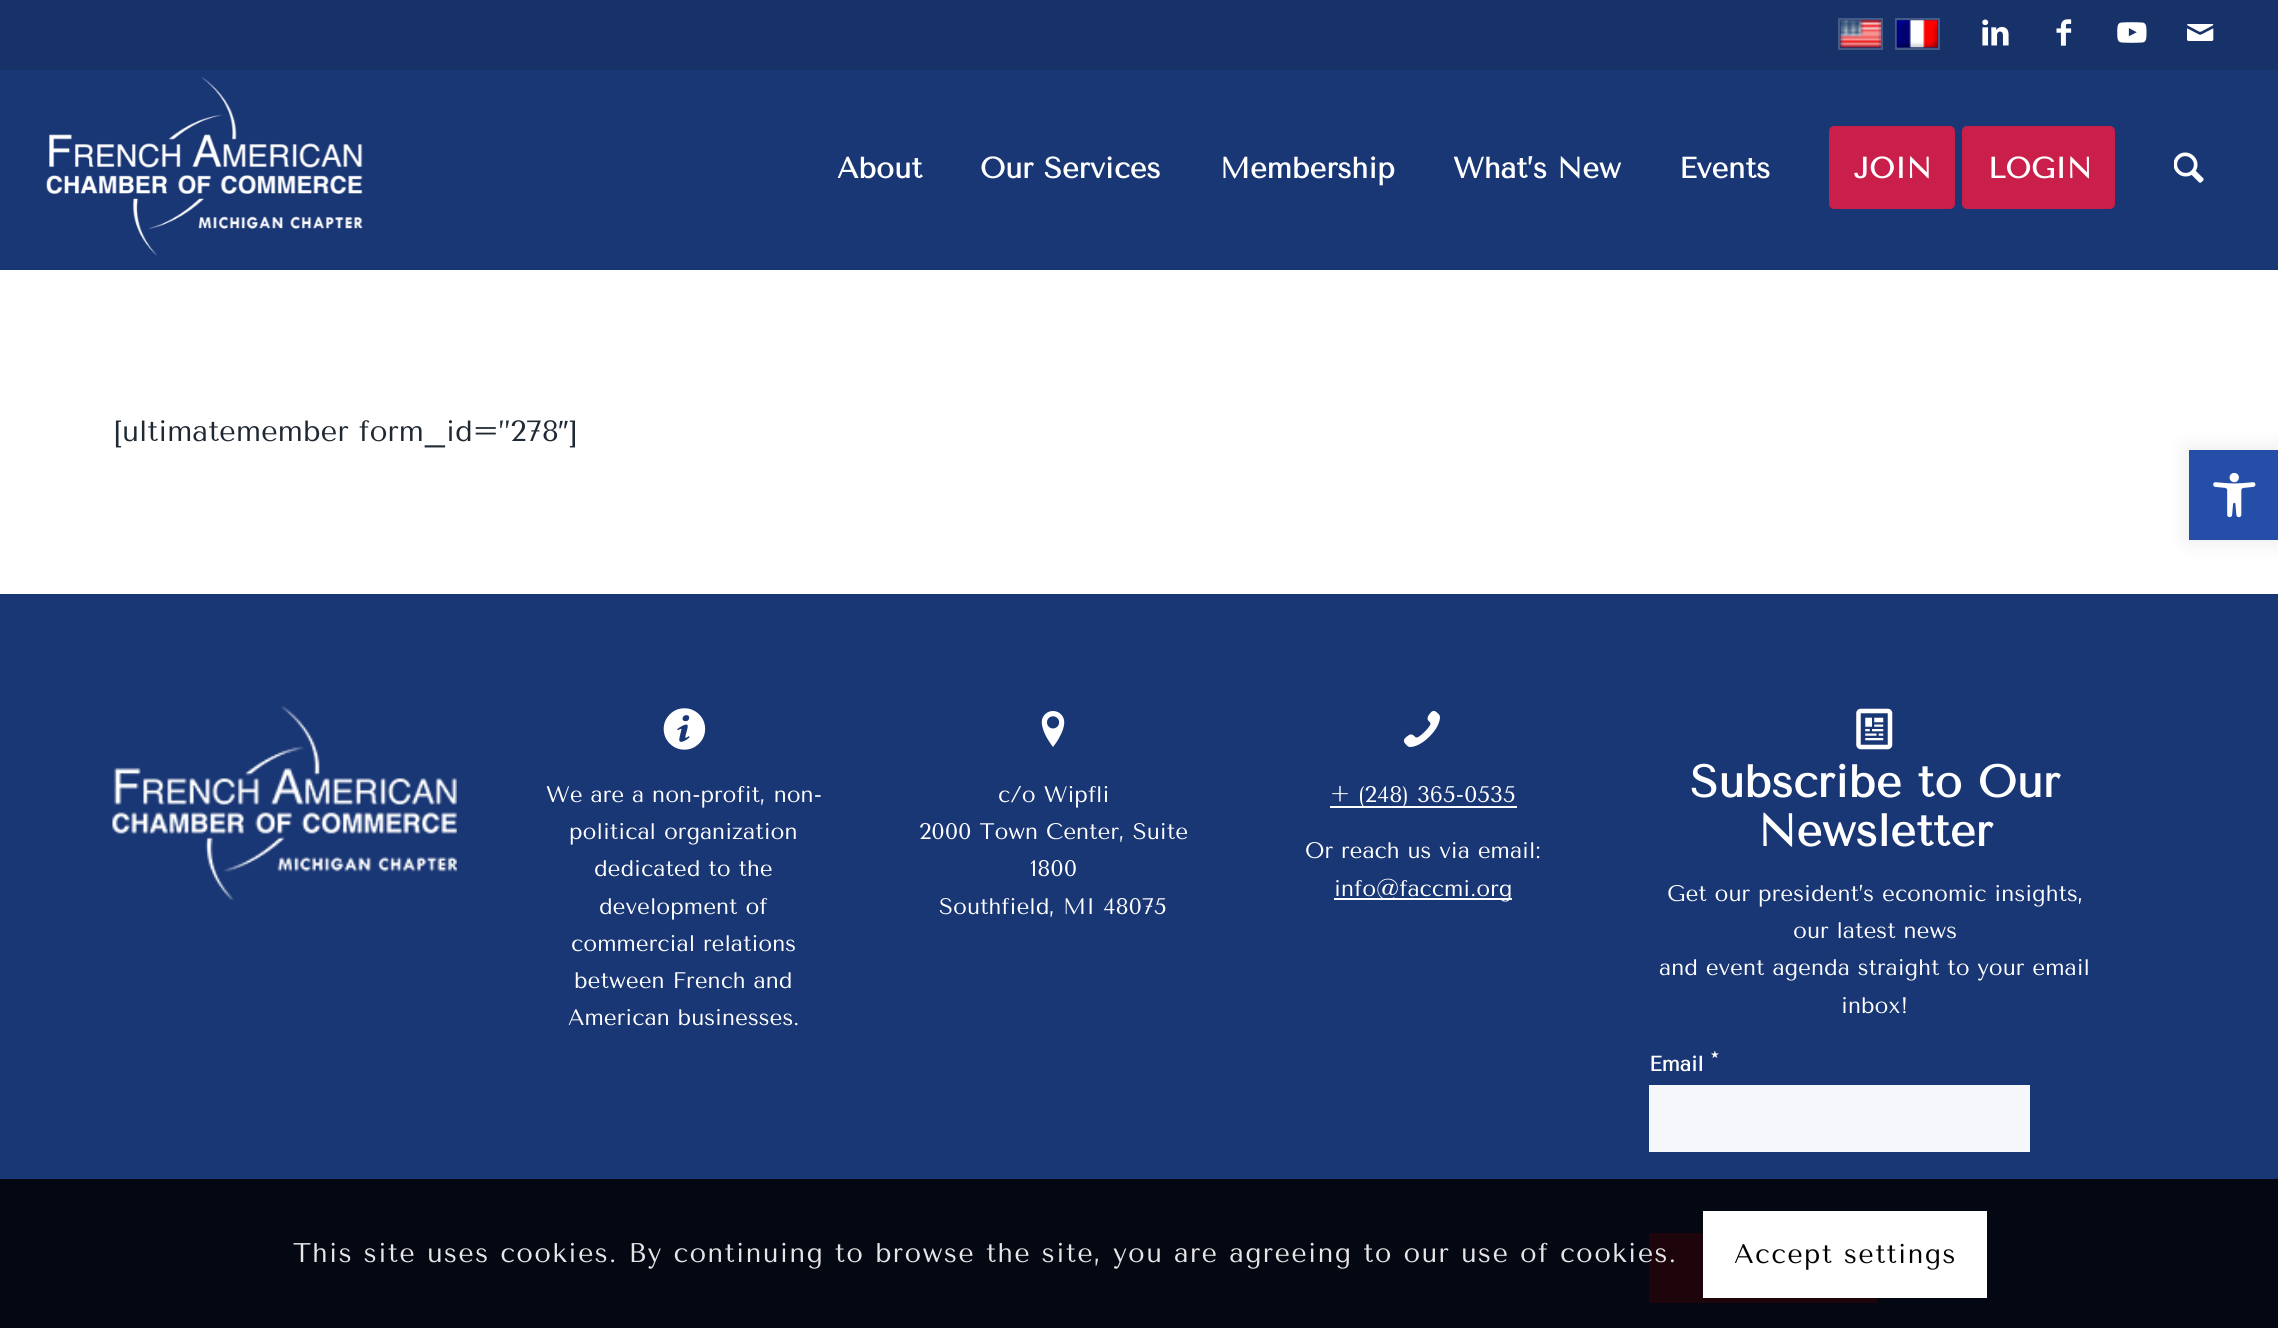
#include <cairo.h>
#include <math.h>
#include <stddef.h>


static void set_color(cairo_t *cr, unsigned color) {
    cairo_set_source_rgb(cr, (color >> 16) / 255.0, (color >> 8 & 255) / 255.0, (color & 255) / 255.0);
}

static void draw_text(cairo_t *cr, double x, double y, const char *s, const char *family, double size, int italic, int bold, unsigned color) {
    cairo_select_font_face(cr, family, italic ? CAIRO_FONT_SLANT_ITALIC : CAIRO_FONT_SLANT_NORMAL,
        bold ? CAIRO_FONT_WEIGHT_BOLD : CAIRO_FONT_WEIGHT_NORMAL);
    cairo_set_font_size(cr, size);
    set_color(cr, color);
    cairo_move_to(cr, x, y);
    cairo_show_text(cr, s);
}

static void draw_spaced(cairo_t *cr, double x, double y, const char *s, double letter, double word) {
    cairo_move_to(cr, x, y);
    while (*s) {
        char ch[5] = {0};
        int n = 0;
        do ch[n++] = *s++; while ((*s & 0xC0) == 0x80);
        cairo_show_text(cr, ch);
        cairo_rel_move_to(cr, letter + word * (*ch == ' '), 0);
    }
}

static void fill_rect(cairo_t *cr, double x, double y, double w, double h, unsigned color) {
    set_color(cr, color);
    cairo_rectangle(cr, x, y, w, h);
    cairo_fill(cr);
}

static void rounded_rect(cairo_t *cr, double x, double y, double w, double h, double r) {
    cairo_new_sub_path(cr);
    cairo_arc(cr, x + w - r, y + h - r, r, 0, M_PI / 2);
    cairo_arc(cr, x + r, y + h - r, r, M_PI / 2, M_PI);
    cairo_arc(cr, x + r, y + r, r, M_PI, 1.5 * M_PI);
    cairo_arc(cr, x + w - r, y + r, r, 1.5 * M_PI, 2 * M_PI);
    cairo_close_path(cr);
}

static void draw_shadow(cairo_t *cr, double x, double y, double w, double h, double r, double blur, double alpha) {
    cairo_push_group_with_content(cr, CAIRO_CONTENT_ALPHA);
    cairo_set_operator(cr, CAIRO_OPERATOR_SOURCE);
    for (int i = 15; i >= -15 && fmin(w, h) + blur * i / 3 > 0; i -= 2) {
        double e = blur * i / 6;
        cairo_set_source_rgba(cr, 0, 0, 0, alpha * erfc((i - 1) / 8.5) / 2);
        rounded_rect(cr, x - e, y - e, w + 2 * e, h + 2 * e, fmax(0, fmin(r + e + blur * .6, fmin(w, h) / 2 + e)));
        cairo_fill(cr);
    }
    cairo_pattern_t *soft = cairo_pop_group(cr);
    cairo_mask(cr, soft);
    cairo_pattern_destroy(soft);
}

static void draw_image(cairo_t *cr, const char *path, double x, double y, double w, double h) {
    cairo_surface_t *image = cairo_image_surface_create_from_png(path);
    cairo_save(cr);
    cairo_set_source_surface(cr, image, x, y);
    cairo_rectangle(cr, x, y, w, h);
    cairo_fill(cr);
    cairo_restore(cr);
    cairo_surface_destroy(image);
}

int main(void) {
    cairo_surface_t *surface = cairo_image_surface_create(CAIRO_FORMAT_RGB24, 2278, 1328);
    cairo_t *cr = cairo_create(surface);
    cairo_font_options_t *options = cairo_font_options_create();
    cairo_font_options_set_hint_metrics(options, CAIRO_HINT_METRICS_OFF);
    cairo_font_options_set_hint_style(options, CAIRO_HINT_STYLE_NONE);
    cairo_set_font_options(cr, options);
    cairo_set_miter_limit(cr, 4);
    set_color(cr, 0x1A3775);
    cairo_paint(cr);
    fill_rect(cr, 0, 0, 2278, 70, 0x173169);
    cairo_rectangle(cr, 1839, 19, 43, 30);
    set_color(cr, 0x455A87);
    cairo_stroke(cr);
    draw_image(cr, "assets/img1.png", 1840, 20, 41, 28);
    cairo_rectangle(cr, 1896, 19, 43, 30);
    cairo_stroke(cr);
    draw_image(cr, "assets/img2.png", 1896, 20, 42, 28);
    draw_image(cr, "assets/img3.png", 1982, 19, 27, 27);
    draw_image(cr, "assets/img4.png", 2056, 19, 16, 27);
    draw_image(cr, "assets/img5.png", 2117, 22, 30, 21);
    draw_image(cr, "assets/img6.png", 2187, 24, 27, 17);
    draw_image(cr, "assets/img7.png", 46, 77, 317, 179);
    draw_text(cr, 837, 178, "About", "Tenor Sans", 29.25, 0, 1, 0xFFFFFF);
    draw_text(cr, 980, 178, "Our Services", "Tenor Sans", 29.25, 0, 1, 0xFFFFFF);
    draw_text(cr, 1220, 178, "Membership", "Tenor Sans", 29.25, 0, 1, 0xFFFFFF);
    draw_text(cr, 1453, 178, "What’s New", "Tenor Sans", 29.25, 0, 1, 0xFFFFFF);
    draw_text(cr, 1679, 178, "Events", "Tenor Sans", 29.25, 0, 1, 0xFFFFFF);
    set_color(cr, 0xCA1F4A);
    rounded_rect(cr, 1831.5, 128.5, 121, 78, 2.5);
    cairo_fill_preserve(cr);
    cairo_set_line_width(cr, 5);
    cairo_stroke(cr);
    draw_text(cr, 1854, 178, "JOIN", "Tenor Sans", 29.25, 0, 1, 0xFFFFFF);
    set_color(cr, 0xCA1F4A);
    rounded_rect(cr, 1964.5, 128.5, 148, 78, 2.5);
    cairo_fill_preserve(cr);
    cairo_stroke(cr);
    draw_text(cr, 1988, 178, "LOGIN", "Tenor Sans", 29.25, 0, 1, 0xFFFFFF);
    draw_image(cr, "assets/img8.png", 2174, 152, 30, 31);
    fill_rect(cr, 0, 1179, 2278, 149, 0x040812);
    fill_rect(cr, 0, 270, 2278, 324, 0xFFFFFF);
    draw_text(cr, 113, 441, "[ultimatemember form_id=”278 ]", "Tenor Sans", 29.25, 0, 0, 0x1F2933);
    draw_text(cr, 558, 441, "″", "Liberation Sans", 29.25, 0, 0, 0x1F2933);
    draw_image(cr, "assets/img9.png", 112, 706, 345, 194);
    draw_image(cr, "assets/img10.png", 663, 708, 43, 42);
    draw_text(cr, 546, 802, "We are a non-profit, non-", "Tenor Sans", 22.5, 0, 0, 0xFFFFFF);
    draw_text(cr, 569, 839, "political organization", "Tenor Sans", 22.5, 0, 0, 0xFFFFFF);
    draw_text(cr, 594, 876, "dedicated to the", "Tenor Sans", 22.5, 0, 0, 0xFFFFFF);
    draw_text(cr, 599, 914, "development of", "Tenor Sans", 22.5, 0, 0, 0xFFFFFF);
    draw_text(cr, 571, 951, "commercial relations", "Tenor Sans", 22.5, 0, 0, 0xFFFFFF);
    draw_text(cr, 574, 988, "between French and", "Tenor Sans", 22.5, 0, 0, 0xFFFFFF);
    draw_text(cr, 568, 1025, "American businesses.", "Tenor Sans", 22.5, 0, 0, 0xFFFFFF);
    draw_image(cr, "assets/img11.png", 1041, 711, 24, 36);
    draw_text(cr, 998, 802, "c/o Wipfli", "Tenor Sans", 22.5, 0, 0, 0xFFFFFF);
    draw_text(cr, 919, 839, "2000 Town Center, Suite", "Tenor Sans", 22.5, 0, 0, 0xFFFFFF);
    draw_text(cr, 1030, 876, "1800", "Tenor Sans", 22.5, 0, 0, 0xFFFFFF);
    draw_text(cr, 939, 914, "Southfield, MI 48075", "Tenor Sans", 22.5, 0, 0, 0xFFFFFF);
    draw_image(cr, "assets/img12.png", 1404, 711, 36, 36);
    fill_rect(cr, 1330, 806, 187, 2, 0xFFFFFF);
    draw_text(cr, 1330, 802, "+ (248) 365-0535", "Tenor Sans", 22.5, 0, 0, 0xFFFFFF);
    draw_text(cr, 1305, 858, "Or reach us via email:", "Tenor Sans", 22.5, 0, 0, 0xFFFFFF);
    fill_rect(cr, 1334, 898, 178, 2, 0xFFFFFF);
    draw_text(cr, 1334, 896, "info@faccmi.org", "Tenor Sans", 22.5, 0, 0, 0xFFFFFF);
    draw_image(cr, "assets/img13.png", 1856, 708, 37, 42);
    draw_text(cr, 1690, 797, "Subscribe to Our", "Tenor Sans", 45, 0, 1, 0xFFFFFF);
    draw_text(cr, 1758, 846, "Newsletter", "Tenor Sans", 45, 0, 1, 0xFFFFFF);
    draw_text(cr, 1667, 901, "Get our president’s economic insights,", "Tenor Sans", 22.5, 0, 0, 0xFFFFFF);
    draw_text(cr, 1793, 938, "our latest news", "Tenor Sans", 22.5, 0, 0, 0xFFFFFF);
    draw_text(cr, 1659, 975, "and event agenda straight to your email", "Tenor Sans", 22.5, 0, 0, 0xFFFFFF);
    draw_text(cr, 1841, 1013, "inbox!", "Tenor Sans", 22.5, 0, 0, 0xFFFFFF);
    draw_text(cr, 1710, 1071, "*", "Tenor Sans", 29.25, 0, 0, 0xFFFFFF);
    draw_text(cr, 1649, 1071, "Email", "Tenor Sans", 21, 0, 1, 0xFFFFFF);
    fill_rect(cr, 1649, 1085, 381, 67, 0xF5F7FA);
    fill_rect(cr, 1649, 1233, 228, 70, 0x1E050B);
    set_color(cr, 0x000000);
    draw_shadow(cr, 2189, 450, 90, 90, 0, 11, 0.1);
    fill_rect(cr, 2189, 450, 89, 90, 0x254EA8);
    draw_image(cr, "assets/img14.png", 2213, 473, 43, 45);
    cairo_select_font_face(cr, "Tenor Sans", CAIRO_FONT_SLANT_NORMAL, CAIRO_FONT_WEIGHT_NORMAL);
    cairo_set_font_size(cr, 27);
    set_color(cr, 0xE6E6E7);
    draw_spaced(cr, 293, 1262, "This site uses cookies. By continuing to browse the site, you are agreeing to our use of cookies.", 1.35, 0);
    fill_rect(cr, 1703, 1211, 284, 87, 0xFFFFFF);
    set_color(cr, 0x000000);
    draw_spaced(cr, 1734, 1263, "Accept settings", 1.35, 0);
    cairo_surface_write_to_png(surface, "output.png");
    cairo_font_options_destroy(options);
    cairo_destroy(cr);
    cairo_surface_destroy(surface);
    return 0;
}
